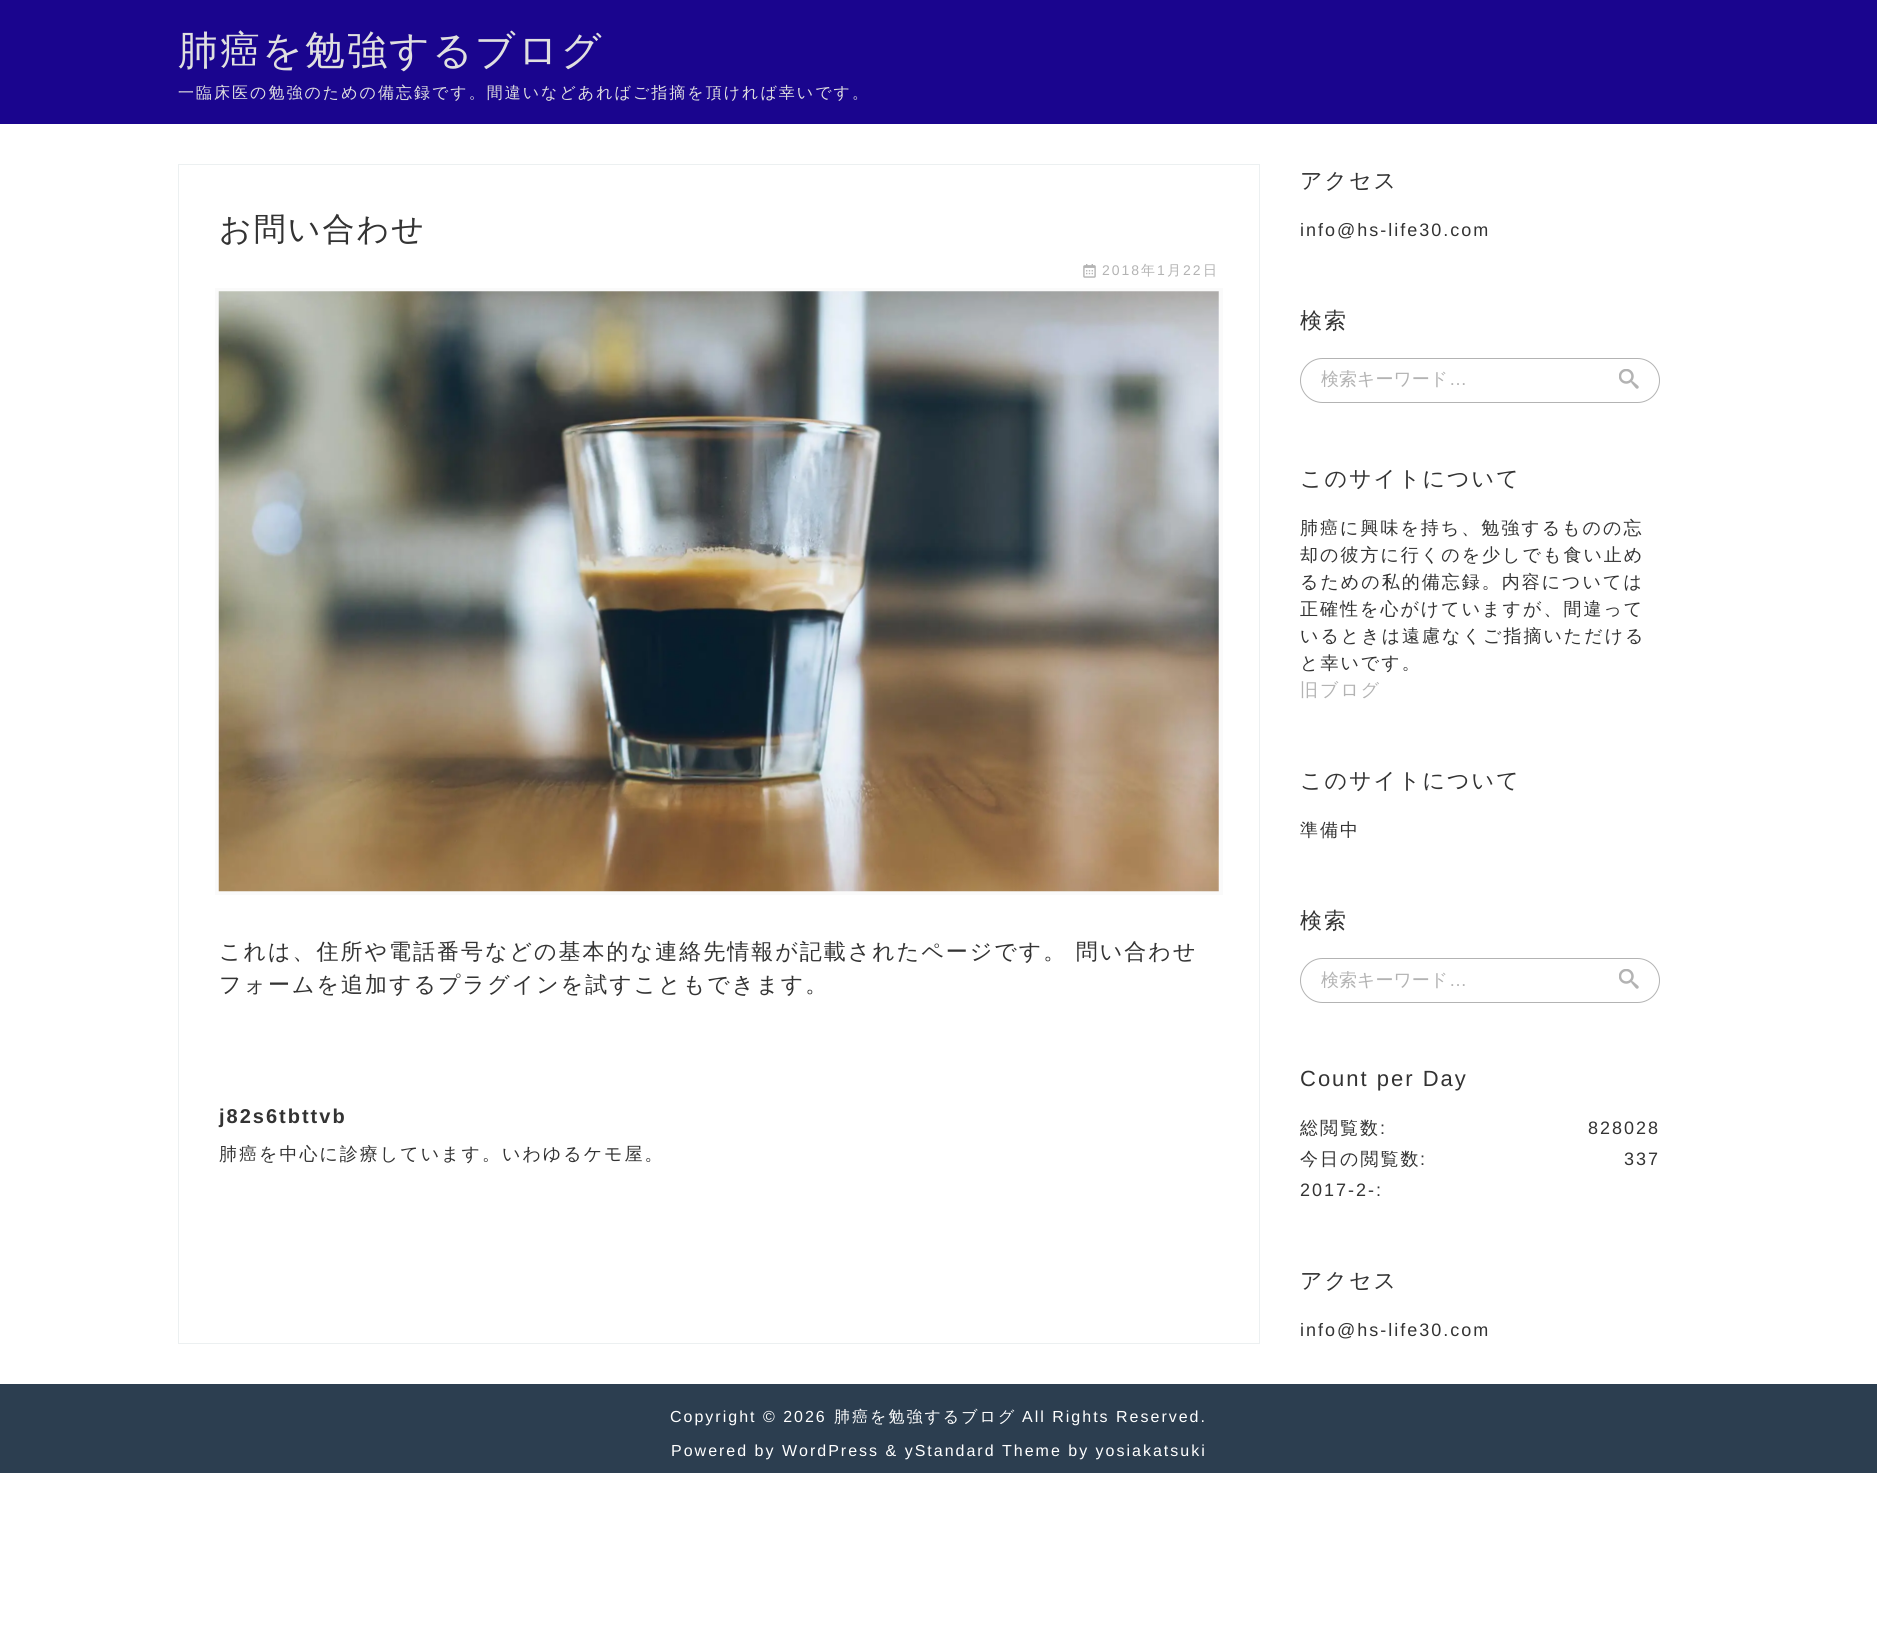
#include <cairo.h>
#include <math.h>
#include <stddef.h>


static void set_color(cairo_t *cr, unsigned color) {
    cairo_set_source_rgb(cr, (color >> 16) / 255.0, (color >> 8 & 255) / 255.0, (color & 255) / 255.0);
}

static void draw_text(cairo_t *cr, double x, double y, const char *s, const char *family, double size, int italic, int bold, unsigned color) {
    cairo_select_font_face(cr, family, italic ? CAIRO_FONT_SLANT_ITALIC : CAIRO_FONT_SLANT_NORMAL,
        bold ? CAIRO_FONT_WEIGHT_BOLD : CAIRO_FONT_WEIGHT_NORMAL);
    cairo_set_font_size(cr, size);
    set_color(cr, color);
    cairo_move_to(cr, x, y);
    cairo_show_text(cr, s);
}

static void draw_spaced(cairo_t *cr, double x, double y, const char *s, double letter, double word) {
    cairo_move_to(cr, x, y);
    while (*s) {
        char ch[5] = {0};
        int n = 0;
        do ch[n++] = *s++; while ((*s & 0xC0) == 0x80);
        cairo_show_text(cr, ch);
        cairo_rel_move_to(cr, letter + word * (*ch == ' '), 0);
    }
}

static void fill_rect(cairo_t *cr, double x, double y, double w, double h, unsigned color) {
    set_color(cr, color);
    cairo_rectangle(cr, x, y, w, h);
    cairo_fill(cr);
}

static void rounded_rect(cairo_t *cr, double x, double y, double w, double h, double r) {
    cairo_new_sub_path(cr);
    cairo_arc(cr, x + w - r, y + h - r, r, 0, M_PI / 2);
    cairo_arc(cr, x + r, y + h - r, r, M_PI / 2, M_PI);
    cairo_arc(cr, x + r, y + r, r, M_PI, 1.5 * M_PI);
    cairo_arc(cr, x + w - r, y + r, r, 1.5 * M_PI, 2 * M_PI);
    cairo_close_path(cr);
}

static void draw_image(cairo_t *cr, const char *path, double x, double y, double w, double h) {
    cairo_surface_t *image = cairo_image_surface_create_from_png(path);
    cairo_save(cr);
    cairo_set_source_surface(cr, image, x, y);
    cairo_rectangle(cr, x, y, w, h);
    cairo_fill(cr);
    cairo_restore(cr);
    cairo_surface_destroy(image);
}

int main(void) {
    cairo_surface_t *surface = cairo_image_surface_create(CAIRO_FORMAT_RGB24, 1877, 1629);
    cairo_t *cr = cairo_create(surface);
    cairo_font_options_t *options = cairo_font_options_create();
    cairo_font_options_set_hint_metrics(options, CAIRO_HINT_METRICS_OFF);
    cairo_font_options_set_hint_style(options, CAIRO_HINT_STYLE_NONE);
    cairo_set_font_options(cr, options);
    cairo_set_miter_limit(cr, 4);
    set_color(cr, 0xFFFFFF);
    cairo_paint(cr);
    fill_rect(cr, 0, 0, 1877, 124, 0x1A058E);
    cairo_select_font_face(cr, "WenQuanYi Zen Hei Medium", CAIRO_FONT_SLANT_NORMAL, CAIRO_FONT_WEIGHT_NORMAL);
    cairo_set_font_size(cr, 40);
    set_color(cr, 0xE0E0E0);
    draw_spaced(cr, 178, 64, "肺癌を勉強するブログ", 2, 0);
    cairo_set_font_size(cr, 16);
    draw_spaced(cr, 178, 98, "一臨床医の勉強のための備忘録です。間違いなどあればご指摘を頂ければ幸いです。", 2, 0);
    cairo_rectangle(cr, 178.5, 164.5, 1081, 1179);
    set_color(cr, 0xECF0F1);
    cairo_set_line_width(cr, 1);
    cairo_stroke(cr);
    cairo_set_font_size(cr, 32);
    set_color(cr, 0x333333);
    draw_spaced(cr, 219, 240, "お問い合わせ", 2, 0);
    draw_image(cr, "assets/img1.png", 1083, 264, 13, 14);
    cairo_select_font_face(cr, "Liberation Sans", CAIRO_FONT_SLANT_NORMAL, CAIRO_FONT_WEIGHT_NORMAL);
    cairo_set_font_size(cr, 14);
    set_color(cr, 0xB3B3B3);
    draw_spaced(cr, 1102, 275, "2018", 2, 0);
    cairo_select_font_face(cr, "WenQuanYi Zen Hei Medium", CAIRO_FONT_SLANT_NORMAL, CAIRO_FONT_WEIGHT_NORMAL);
    draw_spaced(cr, 1141, 275, "年", 2, 0);
    cairo_select_font_face(cr, "Liberation Sans", CAIRO_FONT_SLANT_NORMAL, CAIRO_FONT_WEIGHT_NORMAL);
    draw_spaced(cr, 1157, 275, "1", 2, 0);
    cairo_select_font_face(cr, "WenQuanYi Zen Hei Medium", CAIRO_FONT_SLANT_NORMAL, CAIRO_FONT_WEIGHT_NORMAL);
    draw_spaced(cr, 1167, 275, "月", 2, 0);
    cairo_select_font_face(cr, "Liberation Sans", CAIRO_FONT_SLANT_NORMAL, CAIRO_FONT_WEIGHT_NORMAL);
    draw_spaced(cr, 1183, 275, "22", 2, 0);
    cairo_select_font_face(cr, "WenQuanYi Zen Hei Medium", CAIRO_FONT_SLANT_NORMAL, CAIRO_FONT_WEIGHT_NORMAL);
    draw_spaced(cr, 1203, 275, "日", 2, 0);
    cairo_rectangle(cr, 217, 290, 1004, 603);
    set_color(cr, 0xFAFAFA);
    cairo_set_line_width(cr, 4);
    cairo_stroke(cr);
    draw_image(cr, "assets/img2.png", 218, 291, 1001, 601);
    cairo_set_font_size(cr, 22);
    set_color(cr, 0x333333);
    draw_spaced(cr, 219, 959, "これは、住所や電話番号などの基本的な連絡先情報が記載されたページです。 問い合わせ", 2, 0);
    draw_spaced(cr, 219, 992, "フォームを追加するプラグインを試すこともできます。", 2, 0);
    cairo_select_font_face(cr, "Liberation Sans", CAIRO_FONT_SLANT_NORMAL, CAIRO_FONT_WEIGHT_BOLD);
    cairo_set_font_size(cr, 20);
    draw_spaced(cr, 219, 1123, "j82s6tbttvb", 2, 0);
    cairo_select_font_face(cr, "WenQuanYi Zen Hei Medium", CAIRO_FONT_SLANT_NORMAL, CAIRO_FONT_WEIGHT_NORMAL);
    cairo_set_font_size(cr, 18);
    draw_spaced(cr, 219, 1160, "肺癌を中心に診療しています。いわゆるケモ屋。", 2, 0);
    cairo_set_font_size(cr, 22);
    draw_spaced(cr, 1300, 188, "アクセス", 2, 0);
    cairo_select_font_face(cr, "Liberation Sans", CAIRO_FONT_SLANT_NORMAL, CAIRO_FONT_WEIGHT_NORMAL);
    cairo_set_font_size(cr, 18);
    draw_spaced(cr, 1300, 236, "info@hs-life30.com", 2, 0);
    cairo_select_font_face(cr, "WenQuanYi Zen Hei Medium", CAIRO_FONT_SLANT_NORMAL, CAIRO_FONT_WEIGHT_NORMAL);
    cairo_set_font_size(cr, 22);
    draw_spaced(cr, 1300, 328, "検索", 2, 0);
    rounded_rect(cr, 1300.5, 358.5, 359, 44, 22);
    set_color(cr, 0xB3B3B3);
    cairo_set_line_width(cr, 1);
    cairo_stroke(cr);
    draw_text(cr, 1321, 385, "検索キーワード", "WenQuanYi Zen Hei Medium", 18, 0, 0, 0xB3B3B3);
    draw_text(cr, 1449, 385, "…", "Liberation Sans", 18, 0, 0, 0xB3B3B3);
    draw_image(cr, "assets/img3.png", 1619, 369, 20, 20);
    cairo_select_font_face(cr, "WenQuanYi Zen Hei Medium", CAIRO_FONT_SLANT_NORMAL, CAIRO_FONT_WEIGHT_NORMAL);
    cairo_set_font_size(cr, 22);
    set_color(cr, 0x333333);
    draw_spaced(cr, 1300, 486, "このサイトについて", 2, 0);
    cairo_set_font_size(cr, 18);
    draw_spaced(cr, 1300, 534, "肺癌に興味を持ち、勉強するものの忘", 2, 0);
    draw_spaced(cr, 1300, 561, "却の彼方に行くのを少しでも食い止め", 2, 0);
    draw_spaced(cr, 1300, 588, "るための私的備忘録。内容については", 2, 0);
    draw_spaced(cr, 1300, 615, "正確性を心がけていますが、間違って", 2, 0);
    draw_spaced(cr, 1300, 642, "いるときは遠慮なくご指摘いただける", 2, 0);
    draw_spaced(cr, 1300, 669, "と幸いです。", 2, 0);
    set_color(cr, 0xB3B3B3);
    draw_spaced(cr, 1300, 696, "旧ブログ", 2, 0);
    cairo_set_font_size(cr, 22);
    set_color(cr, 0x333333);
    draw_spaced(cr, 1300, 788, "このサイトについて", 2, 0);
    cairo_set_font_size(cr, 18);
    draw_spaced(cr, 1300, 836, "準備中", 2, 0);
    cairo_set_font_size(cr, 22);
    draw_spaced(cr, 1300, 928, "検索", 2, 0);
    rounded_rect(cr, 1300.5, 958.5, 359, 44, 22);
    set_color(cr, 0xB3B3B3);
    cairo_stroke(cr);
    draw_text(cr, 1321, 986, "検索キーワード", "WenQuanYi Zen Hei Medium", 18, 0, 0, 0xB3B3B3);
    draw_text(cr, 1449, 986, "…", "Liberation Sans", 18, 0, 0, 0xB3B3B3);
    draw_image(cr, "assets/img3.png", 1619, 969, 20, 20);
    cairo_set_font_size(cr, 22);
    set_color(cr, 0x333333);
    draw_spaced(cr, 1300, 1086, "Count per Day", 2, 0);
    cairo_select_font_face(cr, "WenQuanYi Zen Hei Medium", CAIRO_FONT_SLANT_NORMAL, CAIRO_FONT_WEIGHT_NORMAL);
    cairo_set_font_size(cr, 18);
    draw_spaced(cr, 1300, 1134, "総閲覧数", 2, 0);
    cairo_select_font_face(cr, "Liberation Sans", CAIRO_FONT_SLANT_NORMAL, CAIRO_FONT_WEIGHT_NORMAL);
    draw_spaced(cr, 1380, 1134, ":", 2, 0);
    draw_spaced(cr, 1588, 1134, "828028", 2, 0);
    cairo_select_font_face(cr, "WenQuanYi Zen Hei Medium", CAIRO_FONT_SLANT_NORMAL, CAIRO_FONT_WEIGHT_NORMAL);
    draw_spaced(cr, 1300, 1165, "今日の閲覧数", 2, 0);
    cairo_select_font_face(cr, "Liberation Sans", CAIRO_FONT_SLANT_NORMAL, CAIRO_FONT_WEIGHT_NORMAL);
    draw_spaced(cr, 1420, 1165, ":", 2, 0);
    draw_spaced(cr, 1624, 1165, "337", 2, 0);
    draw_spaced(cr, 1300, 1196, "2017-2-:", 2, 0);
    cairo_select_font_face(cr, "WenQuanYi Zen Hei Medium", CAIRO_FONT_SLANT_NORMAL, CAIRO_FONT_WEIGHT_NORMAL);
    cairo_set_font_size(cr, 22);
    draw_spaced(cr, 1300, 1288, "アクセス", 2, 0);
    cairo_select_font_face(cr, "Liberation Sans", CAIRO_FONT_SLANT_NORMAL, CAIRO_FONT_WEIGHT_NORMAL);
    cairo_set_font_size(cr, 18);
    draw_spaced(cr, 1300, 1336, "info@hs-life30.com", 2, 0);
    fill_rect(cr, 0, 1384, 1877, 89, 0x2C3E50);
    cairo_set_font_size(cr, 16);
    set_color(cr, 0xFFFFFF);
    draw_spaced(cr, 670, 1422, "Copyright © 2026", 2, 0);
    cairo_select_font_face(cr, "WenQuanYi Zen Hei Medium", CAIRO_FONT_SLANT_NORMAL, CAIRO_FONT_WEIGHT_NORMAL);
    draw_spaced(cr, 834, 1422, "肺癌を勉強するブログ", 2, 0);
    cairo_select_font_face(cr, "Liberation Sans", CAIRO_FONT_SLANT_NORMAL, CAIRO_FONT_WEIGHT_NORMAL);
    draw_spaced(cr, 1022, 1422, "All Rights Reserved.", 2, 0);
    draw_spaced(cr, 671, 1456, "Powered by WordPress & yStandard Theme by yosiakatsuki", 2, 0);
    cairo_surface_write_to_png(surface, "output.png");
    cairo_font_options_destroy(options);
    cairo_destroy(cr);
    cairo_surface_destroy(surface);
    return 0;
}
